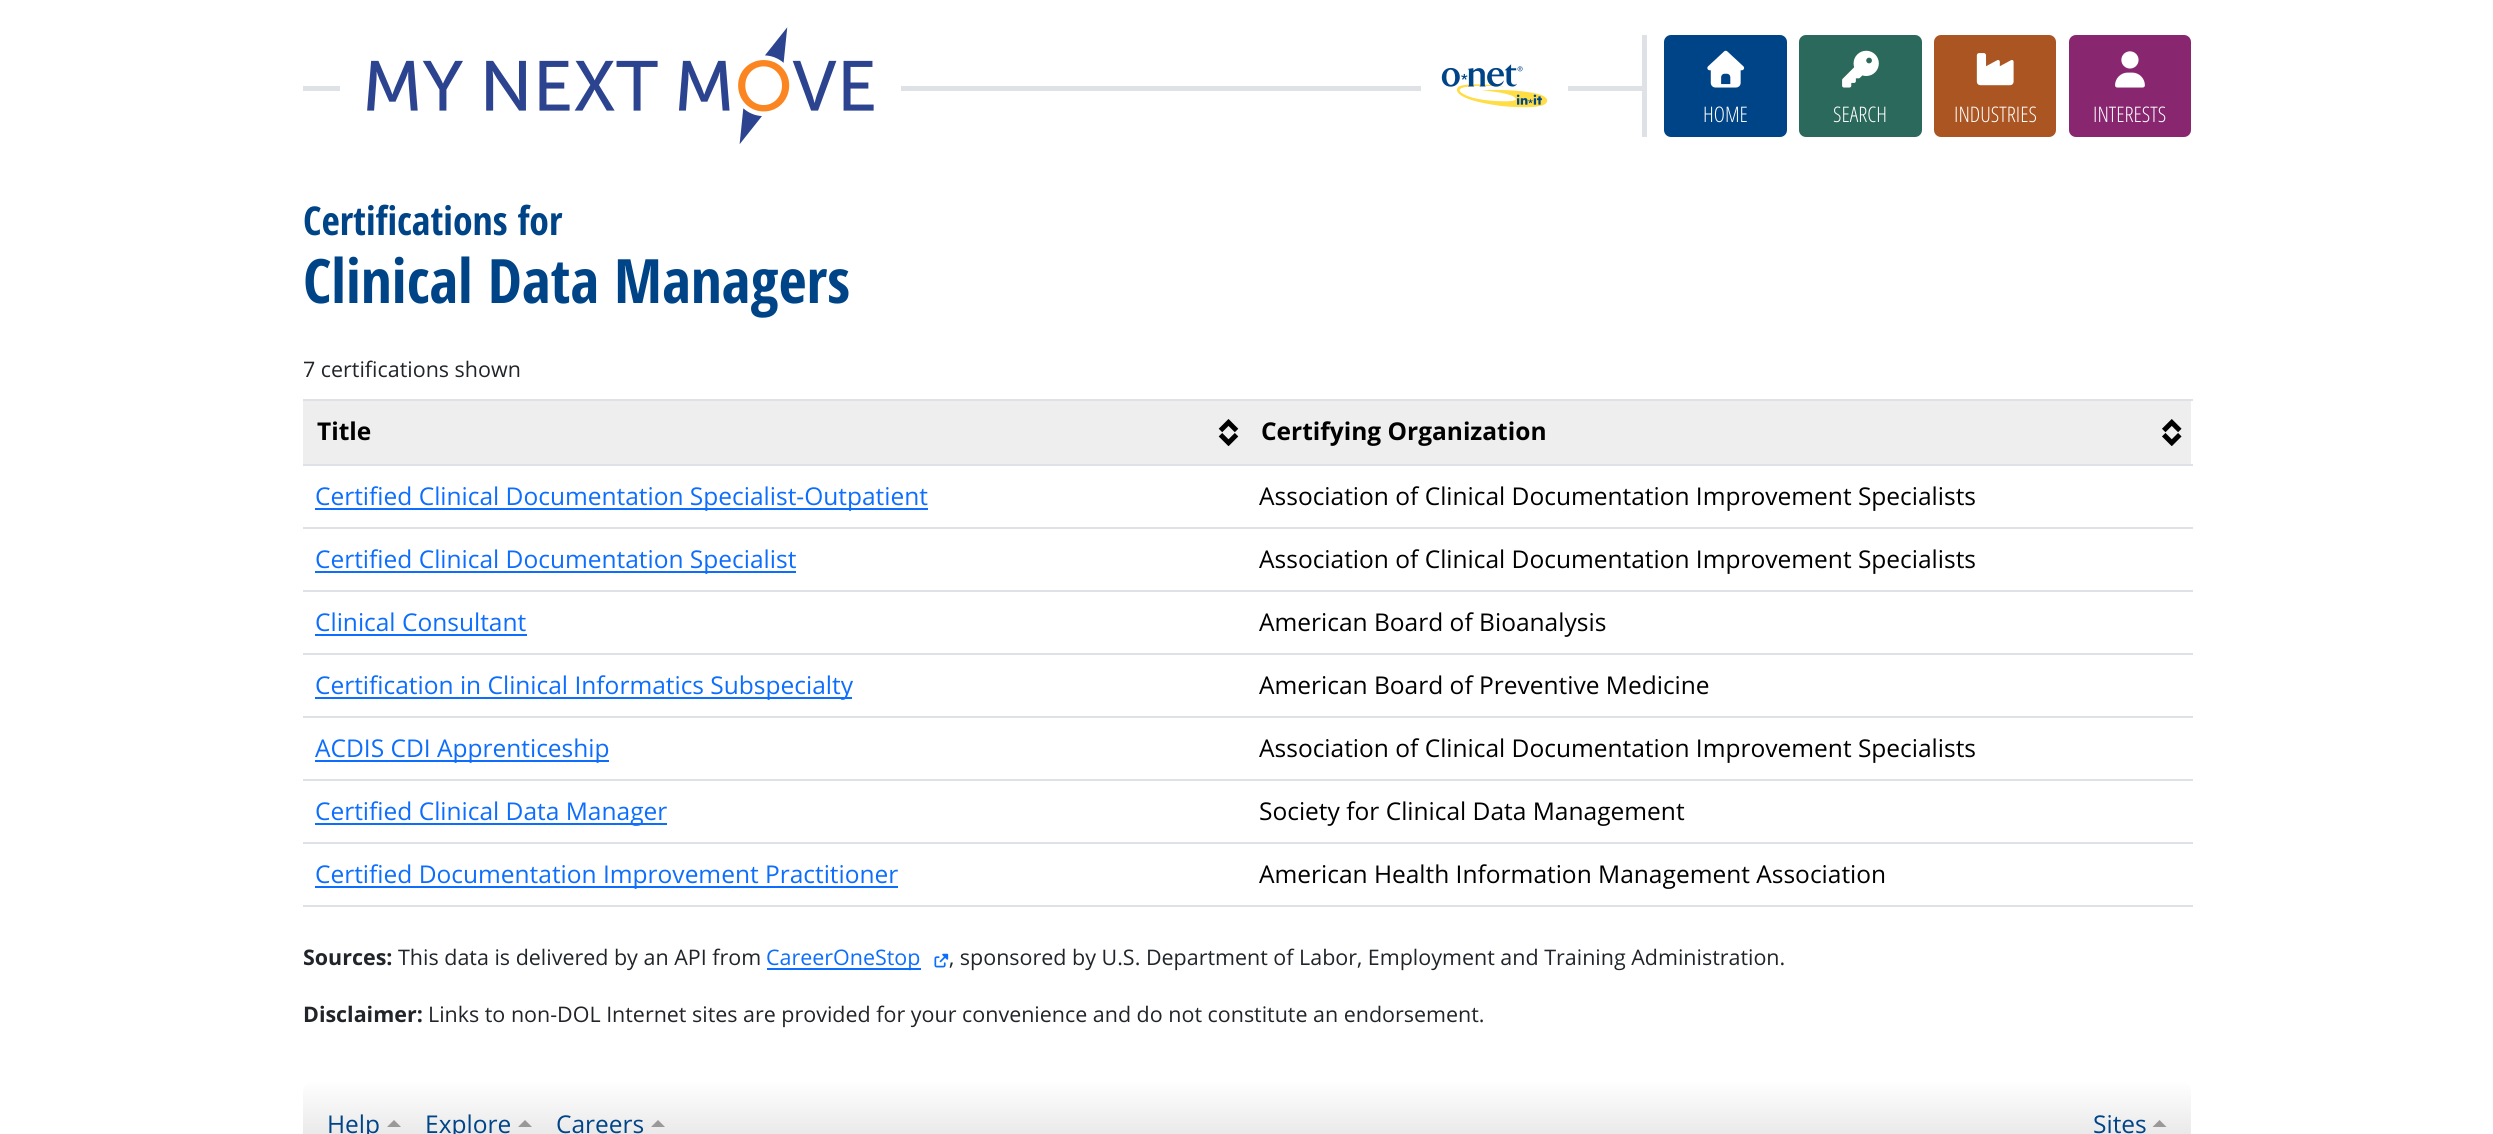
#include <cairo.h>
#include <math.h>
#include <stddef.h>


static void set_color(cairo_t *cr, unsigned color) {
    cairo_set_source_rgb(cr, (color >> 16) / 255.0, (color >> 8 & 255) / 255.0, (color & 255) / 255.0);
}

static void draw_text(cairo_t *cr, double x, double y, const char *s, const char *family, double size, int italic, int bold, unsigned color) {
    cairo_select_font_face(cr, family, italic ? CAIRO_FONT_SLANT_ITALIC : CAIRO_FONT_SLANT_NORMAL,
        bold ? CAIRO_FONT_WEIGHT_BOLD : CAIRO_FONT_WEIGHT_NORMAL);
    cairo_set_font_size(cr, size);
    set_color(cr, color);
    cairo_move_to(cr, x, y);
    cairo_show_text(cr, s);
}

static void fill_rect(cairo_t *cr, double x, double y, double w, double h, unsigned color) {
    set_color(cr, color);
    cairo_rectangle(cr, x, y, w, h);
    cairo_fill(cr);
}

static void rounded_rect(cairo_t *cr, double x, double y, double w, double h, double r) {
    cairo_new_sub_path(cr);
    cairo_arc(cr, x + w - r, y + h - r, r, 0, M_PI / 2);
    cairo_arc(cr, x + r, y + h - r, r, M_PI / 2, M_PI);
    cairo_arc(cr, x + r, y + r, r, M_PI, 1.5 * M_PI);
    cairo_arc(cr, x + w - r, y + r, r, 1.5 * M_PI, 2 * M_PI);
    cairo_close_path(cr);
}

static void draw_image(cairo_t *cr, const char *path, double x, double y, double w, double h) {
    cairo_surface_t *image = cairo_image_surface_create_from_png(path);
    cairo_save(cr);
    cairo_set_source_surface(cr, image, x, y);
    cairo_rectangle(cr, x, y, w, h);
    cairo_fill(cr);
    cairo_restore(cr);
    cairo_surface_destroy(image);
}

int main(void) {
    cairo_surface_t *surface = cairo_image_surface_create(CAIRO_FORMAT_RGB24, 2493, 1134);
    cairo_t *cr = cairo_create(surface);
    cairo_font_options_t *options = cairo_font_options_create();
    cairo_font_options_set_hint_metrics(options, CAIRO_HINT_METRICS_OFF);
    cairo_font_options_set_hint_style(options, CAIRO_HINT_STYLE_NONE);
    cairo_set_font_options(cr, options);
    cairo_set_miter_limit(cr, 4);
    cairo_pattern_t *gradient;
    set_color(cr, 0xFFFFFF);
    cairo_paint(cr);
    fill_rect(cr, 303, 86, 1339, 5, 0xDEE2E6);
    fill_rect(cr, 340, 86, 561, 5, 0xFFFFFF);
    draw_image(cr, "assets/img1.png", 367, 27, 507, 117);
    fill_rect(cr, 1421, 86, 147, 5, 0xFFFFFF);
    draw_image(cr, "assets/img2.png", 1441, 64, 107, 44);
    fill_rect(cr, 1642, 35, 5, 102, 0xDEE2E6);
    set_color(cr, 0x004488);
    rounded_rect(cr, 1665, 36, 121, 100, 6);
    cairo_fill_preserve(cr);
    cairo_stroke(cr);
    draw_image(cr, "assets/img3.png", 1707, 50, 38, 38);
    draw_text(cr, 1703, 122, "HOME", "Open Sans Light", 21.45, 0, 0, 0xFFFFFF);
    set_color(cr, 0x2A695B);
    rounded_rect(cr, 1800, 36, 121, 100, 6);
    cairo_fill_preserve(cr);
    cairo_stroke(cr);
    draw_image(cr, "assets/img4.png", 1842, 50, 37, 38);
    draw_text(cr, 1833, 122, "SEARCH", "Open Sans Light", 21.45, 0, 0, 0xFFFFFF);
    set_color(cr, 0xAA5522);
    rounded_rect(cr, 1935, 36, 120, 100, 6);
    cairo_fill_preserve(cr);
    cairo_stroke(cr);
    draw_image(cr, "assets/img5.png", 1976, 53, 38, 33);
    draw_text(cr, 1954, 122, "INDUSTRIES", "Open Sans Light", 21.45, 0, 0, 0xFFFFFF);
    set_color(cr, 0x882770);
    rounded_rect(cr, 2070, 36, 120, 100, 6);
    cairo_fill_preserve(cr);
    cairo_stroke(cr);
    draw_image(cr, "assets/img6.png", 2115, 51, 30, 37);
    draw_text(cr, 2093, 122, "INTERESTS", "Open Sans Light", 21.45, 0, 0, 0xFFFFFF);
    draw_text(cr, 303, 235, "Certifications for", "Open Sans Condensed", 39.75, 0, 1, 0x004488);
    draw_text(cr, 303, 303, "Clinical Data Managers", "Open Sans Condensed", 61.25, 0, 1, 0x004488);
    draw_text(cr, 303, 377, "7 certifications shown", "Open Sans", 21.45, 0, 0, 0x212529);
    fill_rect(cr, 303, 401, 1888, 63, 0xEEEEEE);
    draw_image(cr, "assets/img7.png", 1218, 419, 21, 27);
    draw_text(cr, 317, 440, "Title", "Open Sans", 24.5, 0, 1, 0x000000);
    draw_image(cr, "assets/img8.png", 2162, 419, 20, 27);
    fill_rect(cr, 303, 399, 1890, 2, 0xDEE2E6);
    fill_rect(cr, 303, 464, 1890, 2, 0xDEE2E6);
    draw_text(cr, 1261, 440, "Certifying Organization", "Open Sans", 24.5, 0, 1, 0x000000);
    fill_rect(cr, 315, 508, 613, 2, 0x0D6EFD);
    draw_text(cr, 315, 505, "Certified Clinical Documentation Specialist-Outpatient", "Open Sans", 24.5, 0, 0, 0x0D6EFD);
    fill_rect(cr, 303, 527, 1890, 2, 0xDEE2E6);
    draw_text(cr, 1259, 505, "Association of Clinical Documentation Improvement Specialists", "Open Sans", 24.5, 0, 0, 0x000000);
    fill_rect(cr, 315, 571, 481, 2, 0x0D6EFD);
    draw_text(cr, 315, 568, "Certified Clinical Documentation Specialist", "Open Sans", 24.5, 0, 0, 0x0D6EFD);
    fill_rect(cr, 303, 590, 1890, 2, 0xDEE2E6);
    draw_text(cr, 1259, 568, "Association of Clinical Documentation Improvement Specialists", "Open Sans", 24.5, 0, 0, 0x000000);
    draw_text(cr, 315, 631, "Clinical Consultant", "Open Sans", 24.5, 0, 0, 0x0D6EFD);
    fill_rect(cr, 315, 634, 212, 2, 0x0D6EFD);
    fill_rect(cr, 303, 653, 1890, 2, 0xDEE2E6);
    draw_text(cr, 1259, 631, "American Board of Bioanalysis", "Open Sans", 24.5, 0, 0, 0x000000);
    fill_rect(cr, 315, 697, 537, 2, 0x0D6EFD);
    draw_text(cr, 315, 694, "Certification in Clinical Informatics Subspecialty", "Open Sans", 24.5, 0, 0, 0x0D6EFD);
    fill_rect(cr, 303, 716, 1890, 2, 0xDEE2E6);
    draw_text(cr, 1259, 694, "American Board of Preventive Medicine", "Open Sans", 24.5, 0, 0, 0x000000);
    fill_rect(cr, 315, 760, 294, 2, 0x0D6EFD);
    draw_text(cr, 315, 757, "ACDIS CDI Apprenticeship", "Open Sans", 24.5, 0, 0, 0x0D6EFD);
    fill_rect(cr, 303, 779, 1890, 2, 0xDEE2E6);
    draw_text(cr, 1259, 757, "Association of Clinical Documentation Improvement Specialists", "Open Sans", 24.5, 0, 0, 0x000000);
    fill_rect(cr, 315, 823, 352, 2, 0x0D6EFD);
    draw_text(cr, 315, 820, "Certified Clinical Data Manager", "Open Sans", 24.5, 0, 0, 0x0D6EFD);
    fill_rect(cr, 303, 842, 1890, 2, 0xDEE2E6);
    draw_text(cr, 1259, 820, "Society for Clinical Data Management", "Open Sans", 24.5, 0, 0, 0x000000);
    fill_rect(cr, 315, 886, 583, 2, 0x0D6EFD);
    draw_text(cr, 315, 883, "Certified Documentation Improvement Practitioner", "Open Sans", 24.5, 0, 0, 0x0D6EFD);
    fill_rect(cr, 303, 905, 1890, 2, 0xDEE2E6);
    draw_text(cr, 1259, 883, "American Health Information Management Association", "Open Sans", 24.5, 0, 0, 0x000000);
    draw_text(cr, 303, 965, "Sources:", "Open Sans", 21.45, 0, 1, 0x212529);
    draw_text(cr, 398, 965, "This data is delivered by an API from", "Open Sans", 21.45, 0, 0, 0x212529);
    fill_rect(cr, 767, 968, 154, 2, 0x0D6EFD);
    draw_text(cr, 766, 965, "CareerOneStop", "Open Sans", 21.45, 0, 0, 0x0D6EFD);
    draw_image(cr, "assets/img9.png", 934, 953, 15, 15);
    draw_text(cr, 949, 965, ", sponsored by U.S. Department of Labor, Employment and Training Administration.", "Open Sans", 21.45, 0, 0, 0x212529);
    draw_text(cr, 303, 1022, "Disclaimer:", "Open Sans", 21.45, 0, 1, 0x212529);
    draw_text(cr, 428, 1022, "Links to non-DOL Internet sites are provided for your convenience and do not constitute an endorsement.", "Open Sans", 21.45, 0, 0, 0x212529);
    gradient = cairo_pattern_create_linear(1247, 1080, 1247, 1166);
    cairo_pattern_add_color_stop_rgba(gradient, 0, 1, 1, 1, 1);
    cairo_pattern_add_color_stop_rgba(gradient, 1, 0.867, 0.867, 0.867, 1);
    cairo_set_source(cr, gradient);
    cairo_pattern_destroy(gradient);
    rounded_rect(cr, 303, 1080, 1888, 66, 12);
    cairo_fill(cr);
    draw_text(cr, 327, 1133, "Help", "Open Sans", 24.5, 0, 0, 0x004488);
    set_color(cr, 0x999999);
    cairo_new_path(cr);
    cairo_move_to(cr, 401, 1127);
    cairo_line_to(cr, 387, 1127);
    cairo_line_to(cr, 394, 1120);
    cairo_close_path(cr);
    cairo_fill(cr);
    draw_text(cr, 425, 1133, "Explore", "Open Sans", 24.5, 0, 0, 0x004488);
    set_color(cr, 0x999999);
    cairo_new_path(cr);
    cairo_move_to(cr, 532, 1127);
    cairo_line_to(cr, 518, 1127);
    cairo_line_to(cr, 525, 1120);
    cairo_close_path(cr);
    cairo_fill(cr);
    draw_text(cr, 556, 1133, "Careers", "Open Sans", 24.5, 0, 0, 0x004488);
    set_color(cr, 0x999999);
    cairo_new_path(cr);
    cairo_move_to(cr, 665, 1127);
    cairo_line_to(cr, 651, 1127);
    cairo_line_to(cr, 658, 1120);
    cairo_close_path(cr);
    cairo_fill(cr);
    draw_text(cr, 2093, 1133, "Sites", "Open Sans", 24.5, 0, 0, 0x004488);
    set_color(cr, 0x999999);
    cairo_new_path(cr);
    cairo_move_to(cr, 2166.5, 1127);
    cairo_line_to(cr, 2152.5, 1127);
    cairo_line_to(cr, 2159.5, 1120);
    cairo_close_path(cr);
    cairo_fill(cr);
    cairo_surface_write_to_png(surface, "output.png");
    cairo_font_options_destroy(options);
    cairo_destroy(cr);
    cairo_surface_destroy(surface);
    return 0;
}
